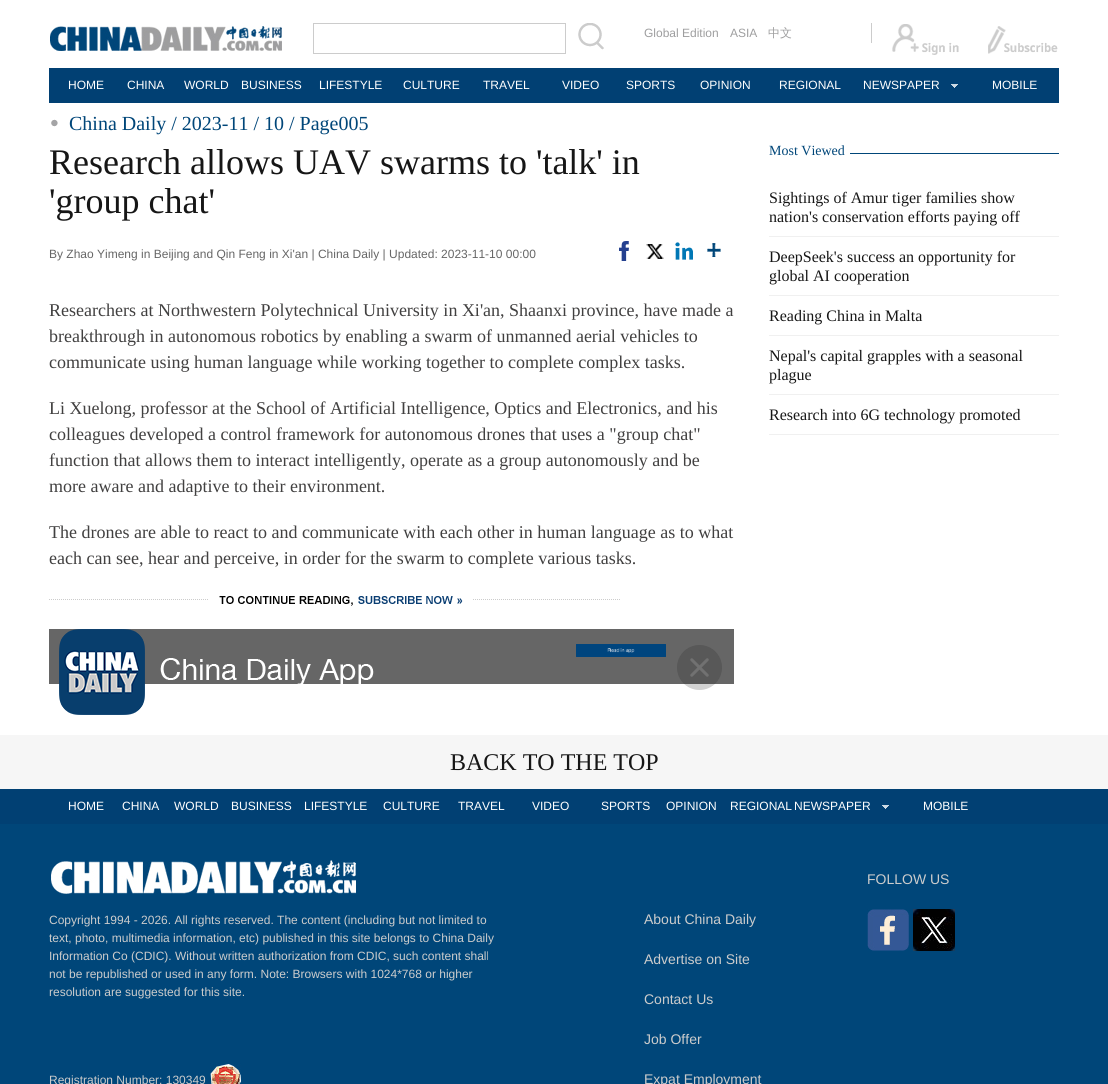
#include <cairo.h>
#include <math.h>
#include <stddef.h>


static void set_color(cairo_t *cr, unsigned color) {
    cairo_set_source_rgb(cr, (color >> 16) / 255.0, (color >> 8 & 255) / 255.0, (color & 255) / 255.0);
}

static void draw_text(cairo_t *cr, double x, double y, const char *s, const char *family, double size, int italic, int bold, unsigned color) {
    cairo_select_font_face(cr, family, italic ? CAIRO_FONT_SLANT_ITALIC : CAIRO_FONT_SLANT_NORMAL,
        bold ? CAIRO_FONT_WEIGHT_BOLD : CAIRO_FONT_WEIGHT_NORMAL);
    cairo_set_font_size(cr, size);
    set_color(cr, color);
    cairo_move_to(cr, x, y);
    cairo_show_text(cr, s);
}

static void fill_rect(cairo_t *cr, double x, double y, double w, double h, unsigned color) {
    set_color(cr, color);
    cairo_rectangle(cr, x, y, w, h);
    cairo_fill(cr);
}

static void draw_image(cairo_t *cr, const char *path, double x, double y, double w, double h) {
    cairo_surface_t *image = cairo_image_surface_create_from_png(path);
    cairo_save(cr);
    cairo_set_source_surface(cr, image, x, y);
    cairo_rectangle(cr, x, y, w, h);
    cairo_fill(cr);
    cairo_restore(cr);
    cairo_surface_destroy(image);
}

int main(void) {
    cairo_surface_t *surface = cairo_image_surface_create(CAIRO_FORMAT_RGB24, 1108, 1084);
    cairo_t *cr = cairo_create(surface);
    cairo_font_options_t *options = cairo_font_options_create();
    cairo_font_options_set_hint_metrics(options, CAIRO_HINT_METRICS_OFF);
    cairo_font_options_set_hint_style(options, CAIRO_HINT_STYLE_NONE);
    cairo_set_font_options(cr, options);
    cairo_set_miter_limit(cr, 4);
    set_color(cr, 0xFFFFFF);
    cairo_paint(cr);
    draw_image(cr, "assets/img1.png", 50, 26, 232, 25);
    cairo_rectangle(cr, 313.5, 23.5, 252, 30);
    set_color(cr, 0xCCCCCC);
    cairo_set_line_width(cr, 1);
    cairo_stroke(cr);
    draw_image(cr, "assets/img2.png", 578, 23, 26, 27);
    fill_rect(cr, 871, 23, 1, 20, 0xCCCCCC);
    draw_text(cr, 644, 37, "Global Edition", "Liberation Sans", 12, 0, 0, 0x9E9E9F);
    draw_text(cr, 730, 37, "ASIA", "Liberation Sans", 12, 0, 0, 0x9E9E9F);
    draw_text(cr, 768, 37, "中文", "WenQuanYi Zen Hei Medium", 12, 0, 0, 0x9E9E9F);
    draw_image(cr, "assets/img3.png", 892, 24, 67, 31);
    draw_image(cr, "assets/img4.png", 988, 26, 70, 28);
    fill_rect(cr, 49, 68, 1010, 35, 0x014073);
    draw_text(cr, 68, 89, "HOME", "Liberation Sans", 12, 0, 0, 0xFFFFFF);
    draw_text(cr, 127, 89, "CHINA", "Liberation Sans", 12, 0, 0, 0xFFFFFF);
    draw_text(cr, 184, 89, "WORLD", "Liberation Sans", 12, 0, 0, 0xFFFFFF);
    draw_text(cr, 241, 89, "BUSINESS", "Liberation Sans", 12, 0, 0, 0xFFFFFF);
    draw_text(cr, 319, 89, "LIFESTYLE", "Liberation Sans", 12, 0, 0, 0xFFFFFF);
    draw_text(cr, 403, 89, "CULTURE", "Liberation Sans", 12, 0, 0, 0xFFFFFF);
    draw_text(cr, 483, 89, "TRAVEL", "Liberation Sans", 12, 0, 0, 0xFFFFFF);
    draw_text(cr, 562, 89, "VIDEO", "Liberation Sans", 12, 0, 0, 0xFFFFFF);
    draw_text(cr, 626, 89, "SPORTS", "Liberation Sans", 12, 0, 0, 0xFFFFFF);
    draw_text(cr, 700, 89, "OPINION", "Liberation Sans", 12, 0, 0, 0xFFFFFF);
    draw_text(cr, 779, 89, "REGIONAL", "Liberation Sans", 12, 0, 0, 0xFFFFFF);
    draw_image(cr, "assets/img5.png", 951, 84, 7, 4);
    draw_text(cr, 863, 89, "NEWSPAPER", "Liberation Sans", 12, 0, 0, 0xFFFFFF);
    draw_text(cr, 992, 89, "MOBILE", "Liberation Sans", 12, 0, 0, 0xFFFFFF);
    draw_image(cr, "assets/img6.png", 51, 119, 7, 8);
    draw_text(cr, 69, 130, "China Daily / 2023-11 / 10 / Page005", "Liberation Serif", 20, 0, 0, 0x004679);
    draw_text(cr, 49, 174, "Research allows UAV swarms to 'talk' in", "Liberation Serif", 36, 0, 0, 0x161616);
    draw_text(cr, 49, 213, "'group chat'", "Liberation Serif", 36, 0, 0, 0x161616);
    draw_text(cr, 49, 258, "By Zhao Yimeng in Beijing and Qin Feng in Xi'an | China Daily | Updated: 2023-11-10 00:00", "Liberation Sans", 12, 0, 0, 0x666666);
    draw_image(cr, "assets/img7.png", 619, 241, 10, 20);
    draw_image(cr, "assets/img8.png", 646, 244, 18, 15);
    draw_image(cr, "assets/img9.png", 675, 242, 18, 18);
    draw_image(cr, "assets/img10.png", 707, 243, 14, 14);
    draw_text(cr, 49, 316, "Researchers at Northwestern Polytechnical University in Xi'an, Shaanxi province, have made a", "Liberation Serif", 18, 0, 0, 0x414040);
    draw_text(cr, 49, 342, "breakthrough in autonomous robotics by enabling a swarm of unmanned aerial vehicles to", "Liberation Serif", 18, 0, 0, 0x414040);
    draw_text(cr, 49, 368, "communicate using human language while working together to complete complex tasks.", "Liberation Serif", 18, 0, 0, 0x414040);
    draw_text(cr, 49, 414, "Li Xuelong, professor at the School of Artificial Intelligence, Optics and Electronics, and his", "Liberation Serif", 18, 0, 0, 0x414040);
    draw_text(cr, 49, 440, "colleagues developed a control framework for autonomous drones that uses a \"group chat\"", "Liberation Serif", 18, 0, 0, 0x414040);
    draw_text(cr, 49, 466, "function that allows them to interact intelligently, operate as a group autonomously and be", "Liberation Serif", 18, 0, 0, 0x414040);
    draw_text(cr, 49, 492, "more aware and adaptive to their environment.", "Liberation Serif", 18, 0, 0, 0x414040);
    draw_text(cr, 49, 538, "The drones are able to react to and communicate with each other in human language as to what", "Liberation Serif", 18, 0, 0, 0x414040);
    draw_text(cr, 49, 564, "each can see, hear and perceive, in order for the swarm to complete various tasks.", "Liberation Serif", 18, 0, 0, 0x414040);
    draw_image(cr, "assets/img11.png", 49, 596, 571, 10);
    fill_rect(cr, 49, 629, 685, 55, 0x666666);
    draw_image(cr, "assets/img12.png", 59, 629, 315, 86);
    draw_image(cr, "assets/img13.png", 576, 644, 90, 13);
    draw_image(cr, "assets/img14.png", 677, 645, 45, 45);
    fill_rect(cr, 850, 153, 209, 1, 0x004679);
    draw_text(cr, 769, 155, "Most Viewed", "Liberation Serif", 14, 0, 0, 0x004679);
    fill_rect(cr, 769, 236, 290, 1, 0xF0F0F0);
    draw_text(cr, 769, 203, "Sightings of Amur tiger families show", "Liberation Serif", 16, 0, 0, 0x161616);
    draw_text(cr, 769, 222, "nation's conservation efforts paying off", "Liberation Serif", 16, 0, 0, 0x161616);
    fill_rect(cr, 769, 295, 290, 1, 0xF0F0F0);
    draw_text(cr, 769, 262, "DeepSeek's success an opportunity for", "Liberation Serif", 16, 0, 0, 0x161616);
    draw_text(cr, 769, 281, "global AI cooperation", "Liberation Serif", 16, 0, 0, 0x161616);
    fill_rect(cr, 769, 335, 290, 1, 0xF0F0F0);
    draw_text(cr, 769, 321, "Reading China in Malta", "Liberation Serif", 16, 0, 0, 0x161616);
    fill_rect(cr, 769, 394, 290, 1, 0xF0F0F0);
    draw_text(cr, 769, 361, "Nepal's capital grapples with a seasonal", "Liberation Serif", 16, 0, 0, 0x161616);
    draw_text(cr, 769, 380, "plague", "Liberation Serif", 16, 0, 0, 0x161616);
    fill_rect(cr, 769, 434, 290, 1, 0xF0F0F0);
    draw_text(cr, 769, 420, "Research into 6G technology promoted", "Liberation Serif", 16, 0, 0, 0x161616);
    fill_rect(cr, 0, 735, 1108, 54, 0xF6F6F6);
    draw_text(cr, 450, 770, "BACK TO THE TOP", "Liberation Serif", 24, 0, 0, 0x161616);
    fill_rect(cr, 0, 789, 1108, 35, 0x014073);
    draw_text(cr, 68, 810, "HOME", "Liberation Sans", 12, 0, 0, 0xFFFFFF);
    draw_text(cr, 122, 810, "CHINA", "Liberation Sans", 12, 0, 0, 0xFFFFFF);
    draw_text(cr, 174, 810, "WORLD", "Liberation Sans", 12, 0, 0, 0xFFFFFF);
    draw_text(cr, 231, 810, "BUSINESS", "Liberation Sans", 12, 0, 0, 0xFFFFFF);
    draw_text(cr, 304, 810, "LIFESTYLE", "Liberation Sans", 12, 0, 0, 0xFFFFFF);
    draw_text(cr, 383, 810, "CULTURE", "Liberation Sans", 12, 0, 0, 0xFFFFFF);
    draw_text(cr, 458, 810, "TRAVEL", "Liberation Sans", 12, 0, 0, 0xFFFFFF);
    draw_text(cr, 532, 810, "VIDEO", "Liberation Sans", 12, 0, 0, 0xFFFFFF);
    draw_text(cr, 601, 810, "SPORTS", "Liberation Sans", 12, 0, 0, 0xFFFFFF);
    draw_text(cr, 666, 810, "OPINION", "Liberation Sans", 12, 0, 0, 0xFFFFFF);
    draw_text(cr, 730, 810, "REGIONAL", "Liberation Sans", 12, 0, 0, 0xFFFFFF);
    draw_image(cr, "assets/img5.png", 882, 805, 7, 4);
    draw_text(cr, 794, 810, "NEWSPAPER", "Liberation Sans", 12, 0, 0, 0xFFFFFF);
    draw_text(cr, 923, 810, "MOBILE", "Liberation Sans", 12, 0, 0, 0xFFFFFF);
    fill_rect(cr, 0, 824, 1108, 260, 0x004679);
    draw_text(cr, 867, 884, "FOLLOW US", "Liberation Sans", 14, 0, 0, 0xCCCCCC);
    draw_image(cr, "assets/img15.png", 867, 909, 42, 42);
    draw_image(cr, "assets/img16.png", 913, 909, 42, 42);
    draw_image(cr, "assets/img17.png", 51, 860, 305, 34);
    draw_text(cr, 49, 924, "Copyright 1994 - 2026. All rights reserved. The content (including but not limited to", "Liberation Sans", 12, 0, 0, 0xCCCCCC);
    draw_text(cr, 49, 942, "text, photo, multimedia information, etc) published in this site belongs to China Daily", "Liberation Sans", 12, 0, 0, 0xCCCCCC);
    draw_text(cr, 49, 960, "Information Co (CDIC). Without written authorization from CDIC, such content shall", "Liberation Sans", 12, 0, 0, 0xCCCCCC);
    draw_text(cr, 49, 978, "not be republished or used in any form. Note: Browsers with 1024*768 or higher", "Liberation Sans", 12, 0, 0, 0xCCCCCC);
    draw_text(cr, 49, 996, "resolution are suggested for this site.", "Liberation Sans", 12, 0, 0, 0xCCCCCC);
    draw_text(cr, 49, 1084, "Registration Number: 130349", "Liberation Sans", 12, 0, 0, 0xCCCCCC);
    draw_image(cr, "assets/img18.png", 210, 1063, 31, 21);
    draw_text(cr, 644, 924, "About China Daily", "Liberation Sans", 14, 0, 0, 0xCCCCCC);
    draw_text(cr, 644, 964, "Advertise on Site", "Liberation Sans", 14, 0, 0, 0xCCCCCC);
    draw_text(cr, 644, 1004, "Contact Us", "Liberation Sans", 14, 0, 0, 0xCCCCCC);
    draw_text(cr, 644, 1044, "Job Offer", "Liberation Sans", 14, 0, 0, 0xCCCCCC);
    draw_text(cr, 644, 1084, "Expat Employment", "Liberation Sans", 14, 0, 0, 0xCCCCCC);
    cairo_surface_write_to_png(surface, "output.png");
    cairo_font_options_destroy(options);
    cairo_destroy(cr);
    cairo_surface_destroy(surface);
    return 0;
}
